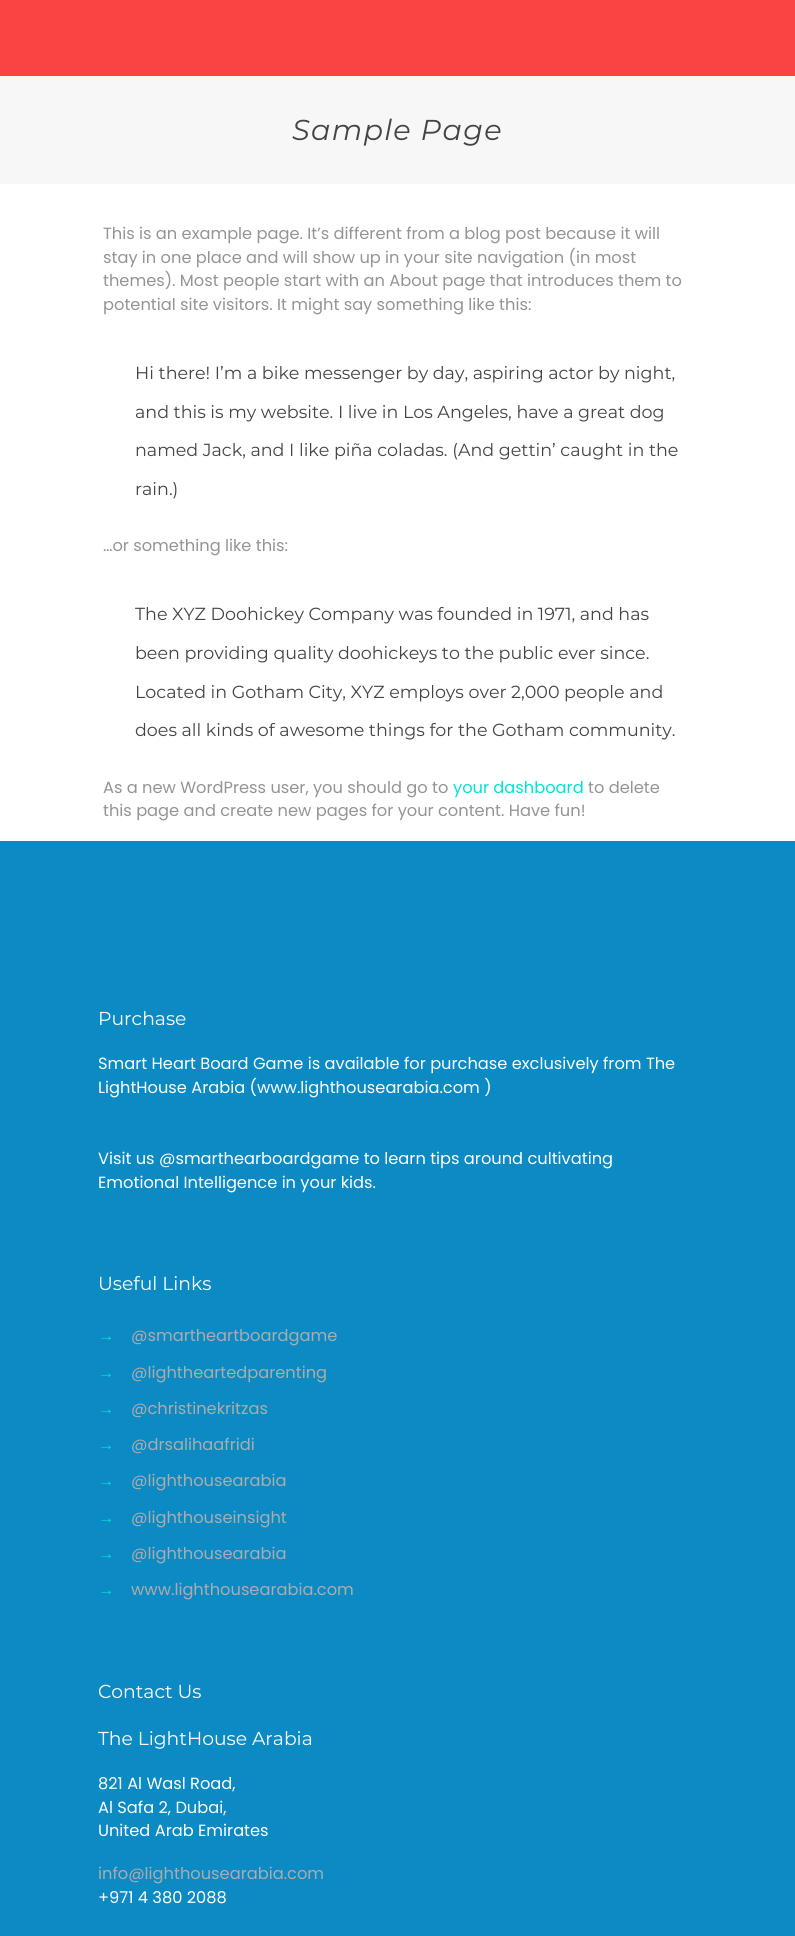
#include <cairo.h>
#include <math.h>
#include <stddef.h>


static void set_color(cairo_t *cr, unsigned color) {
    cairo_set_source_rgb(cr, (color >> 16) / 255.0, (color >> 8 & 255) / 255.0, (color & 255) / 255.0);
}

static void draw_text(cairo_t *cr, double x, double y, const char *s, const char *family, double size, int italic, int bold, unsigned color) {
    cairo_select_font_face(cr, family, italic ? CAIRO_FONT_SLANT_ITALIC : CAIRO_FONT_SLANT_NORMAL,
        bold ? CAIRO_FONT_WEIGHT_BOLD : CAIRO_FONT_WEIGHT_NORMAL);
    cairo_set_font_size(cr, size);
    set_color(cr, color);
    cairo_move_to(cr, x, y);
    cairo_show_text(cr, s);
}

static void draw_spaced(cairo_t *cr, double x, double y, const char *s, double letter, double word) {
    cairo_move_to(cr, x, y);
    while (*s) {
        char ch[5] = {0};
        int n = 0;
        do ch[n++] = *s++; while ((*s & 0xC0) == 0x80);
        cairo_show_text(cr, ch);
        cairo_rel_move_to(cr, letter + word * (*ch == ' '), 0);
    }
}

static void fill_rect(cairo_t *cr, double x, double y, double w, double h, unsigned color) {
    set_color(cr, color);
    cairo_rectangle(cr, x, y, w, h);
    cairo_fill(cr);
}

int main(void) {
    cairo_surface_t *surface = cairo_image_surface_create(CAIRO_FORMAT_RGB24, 795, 1936);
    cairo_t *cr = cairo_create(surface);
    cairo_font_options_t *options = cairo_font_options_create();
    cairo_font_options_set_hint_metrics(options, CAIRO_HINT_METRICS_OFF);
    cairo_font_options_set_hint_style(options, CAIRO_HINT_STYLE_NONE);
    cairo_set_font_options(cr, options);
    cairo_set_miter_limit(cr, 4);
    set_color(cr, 0xFFFFFF);
    cairo_paint(cr);
    fill_rect(cr, 0, 0, 795, 76, 0xFA4343);
    fill_rect(cr, 0, 76, 795, 108, 0xF7F7F7);
    cairo_select_font_face(cr, "Montserrat", CAIRO_FONT_SLANT_ITALIC, CAIRO_FONT_WEIGHT_NORMAL);
    cairo_set_font_size(cr, 28.75);
    set_color(cr, 0x444444);
    draw_spaced(cr, 292, 140, "Sample Page", 1.25, 0);
    draw_text(cr, 103, 239, "This is an example page. It’s different from a blog post because it will", "Poppins", 16.25, 0, 0, 0x949494);
    draw_text(cr, 103, 263, "stay in one place and will show up in your site navigation (in most", "Poppins", 16.25, 0, 0, 0x949494);
    draw_text(cr, 103, 286, "themes). Most people start with an About page that introduces them to", "Poppins", 16.25, 0, 0, 0x949494);
    draw_text(cr, 103, 310, "potential site visitors. It might say something like this:", "Poppins", 16.25, 0, 0, 0x949494);
    draw_text(cr, 135, 379, "Hi there! I’m a bike messenger by day, aspiring actor by night,", "Montserrat", 17.5, 0, 0, 0x444444);
    draw_text(cr, 135, 418, "and this is my website. I live in Los Angeles, have a great dog", "Montserrat", 17.5, 0, 0, 0x444444);
    draw_text(cr, 135, 456, "named Jack, and I like piña coladas. (And gettin’ caught in the", "Montserrat", 17.5, 0, 0, 0x444444);
    draw_text(cr, 135, 495, "rain.)", "Montserrat", 17.5, 0, 0, 0x444444);
    draw_text(cr, 103, 551, "…or something like this:", "Poppins", 16.25, 0, 0, 0x949494);
    draw_text(cr, 135, 620, "The XYZ Doohickey Company was founded in 1971, and has", "Montserrat", 17.5, 0, 0, 0x444444);
    draw_text(cr, 135, 659, "been providing quality doohickeys to the public ever since.", "Montserrat", 17.5, 0, 0, 0x444444);
    draw_text(cr, 135, 698, "Located in Gotham City, XYZ employs over 2,000 people and", "Montserrat", 17.5, 0, 0, 0x444444);
    draw_text(cr, 135, 736, "does all kinds of awesome things for the Gotham community.", "Montserrat", 17.5, 0, 0, 0x444444);
    draw_text(cr, 103, 793, "As a new WordPress user, you should go to", "Poppins", 16.25, 0, 0, 0x949494);
    draw_text(cr, 453, 793, "your dashboard", "Poppins", 16.25, 0, 0, 0x02E2D7);
    draw_text(cr, 588, 793, "to delete", "Poppins", 16.25, 0, 0, 0x949494);
    draw_text(cr, 103, 816, "this page and create new pages for your content. Have fun!", "Poppins", 16.25, 0, 0, 0x949494);
    fill_rect(cr, 0, 841, 795, 1095, 0x0C8AC4);
    draw_text(cr, 98, 1025, "Purchase", "Montserrat", 18.75, 0, 0, 0xFFFFFF);
    draw_text(cr, 98, 1069, "Smart Heart Board Game is available for purchase exclusively from The", "Poppins", 16.25, 0, 0, 0xFFFFFF);
    draw_text(cr, 98, 1093, "LightHouse Arabia (www.lighthousearabia.com )", "Poppins", 16.25, 0, 0, 0xFFFFFF);
    draw_text(cr, 98, 1164, "Visit us @smarthearboardgame to learn tips around cultivating", "Poppins", 16.25, 0, 0, 0xFFFFFF);
    draw_text(cr, 98, 1188, "Emotional Intelligence in your kids.", "Poppins", 16.25, 0, 0, 0xFFFFFF);
    draw_text(cr, 98, 1290, "Useful Links", "Montserrat", 18.75, 0, 0, 0xFFFFFF);
    draw_text(cr, 98, 1341, "→", "Liberation Sans", 16.25, 0, 0, 0x02E2D7);
    draw_text(cr, 131, 1341, "@smartheartboardgame", "Poppins", 16.25, 0, 0, 0xACACAC);
    draw_text(cr, 98, 1378, "→", "Liberation Sans", 16.25, 0, 0, 0x02E2D7);
    draw_text(cr, 131, 1378, "@lightheartedparenting", "Poppins", 16.25, 0, 0, 0xACACAC);
    draw_text(cr, 98, 1414, "→", "Liberation Sans", 16.25, 0, 0, 0x02E2D7);
    draw_text(cr, 131, 1414, "@christinekritzas", "Poppins", 16.25, 0, 0, 0xACACAC);
    draw_text(cr, 98, 1450, "→", "Liberation Sans", 16.25, 0, 0, 0x02E2D7);
    draw_text(cr, 131, 1450, "@drsalihaafridi", "Poppins", 16.25, 0, 0, 0xACACAC);
    draw_text(cr, 98, 1486, "→", "Liberation Sans", 16.25, 0, 0, 0x02E2D7);
    draw_text(cr, 131, 1486, "@lighthousearabia", "Poppins", 16.25, 0, 0, 0xACACAC);
    draw_text(cr, 98, 1523, "→", "Liberation Sans", 16.25, 0, 0, 0x02E2D7);
    draw_text(cr, 131, 1523, "@lighthouseinsight", "Poppins", 16.25, 0, 0, 0xACACAC);
    draw_text(cr, 98, 1559, "→", "Liberation Sans", 16.25, 0, 0, 0x02E2D7);
    draw_text(cr, 131, 1559, "@lighthousearabia", "Poppins", 16.25, 0, 0, 0xACACAC);
    draw_text(cr, 98, 1595, "→", "Liberation Sans", 16.25, 0, 0, 0x02E2D7);
    draw_text(cr, 131, 1595, "www.lighthousearabia.com", "Poppins", 16.25, 0, 0, 0xACACAC);
    draw_text(cr, 98, 1698, "Contact Us", "Montserrat", 18.75, 0, 0, 0xFFFFFF);
    draw_text(cr, 98, 1745, "The LightHouse Arabia", "Montserrat", 18.75, 0, 0, 0xFFFFFF);
    draw_text(cr, 98, 1789, "821 Al Wasl Road,", "Poppins", 16.25, 0, 0, 0xFFFFFF);
    draw_text(cr, 98, 1813, "Al Safa 2, Dubai,", "Poppins", 16.25, 0, 0, 0xFFFFFF);
    draw_text(cr, 98, 1836, "United Arab Emirates", "Poppins", 16.25, 0, 0, 0xFFFFFF);
    draw_text(cr, 98, 1879, "info@lighthousearabia.com", "Poppins", 16.25, 0, 0, 0xACACAC);
    draw_text(cr, 98, 1903, "+971 4 380 2088", "Poppins", 16.25, 0, 0, 0xFFFFFF);
    cairo_surface_write_to_png(surface, "output.png");
    cairo_font_options_destroy(options);
    cairo_destroy(cr);
    cairo_surface_destroy(surface);
    return 0;
}
